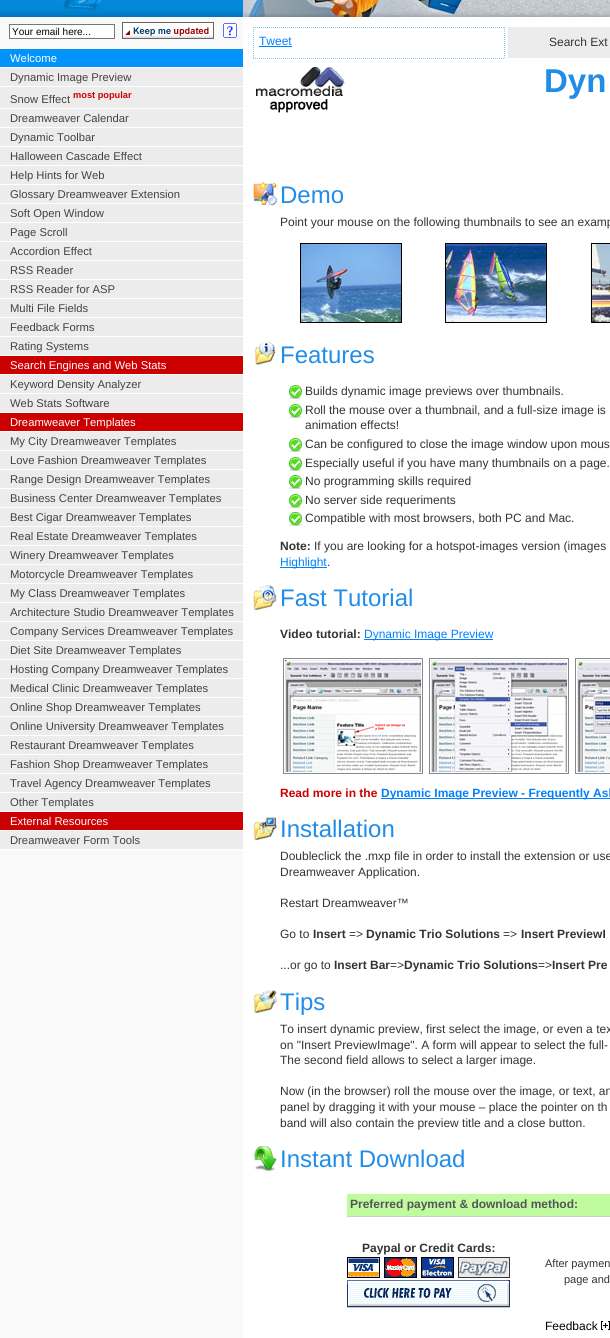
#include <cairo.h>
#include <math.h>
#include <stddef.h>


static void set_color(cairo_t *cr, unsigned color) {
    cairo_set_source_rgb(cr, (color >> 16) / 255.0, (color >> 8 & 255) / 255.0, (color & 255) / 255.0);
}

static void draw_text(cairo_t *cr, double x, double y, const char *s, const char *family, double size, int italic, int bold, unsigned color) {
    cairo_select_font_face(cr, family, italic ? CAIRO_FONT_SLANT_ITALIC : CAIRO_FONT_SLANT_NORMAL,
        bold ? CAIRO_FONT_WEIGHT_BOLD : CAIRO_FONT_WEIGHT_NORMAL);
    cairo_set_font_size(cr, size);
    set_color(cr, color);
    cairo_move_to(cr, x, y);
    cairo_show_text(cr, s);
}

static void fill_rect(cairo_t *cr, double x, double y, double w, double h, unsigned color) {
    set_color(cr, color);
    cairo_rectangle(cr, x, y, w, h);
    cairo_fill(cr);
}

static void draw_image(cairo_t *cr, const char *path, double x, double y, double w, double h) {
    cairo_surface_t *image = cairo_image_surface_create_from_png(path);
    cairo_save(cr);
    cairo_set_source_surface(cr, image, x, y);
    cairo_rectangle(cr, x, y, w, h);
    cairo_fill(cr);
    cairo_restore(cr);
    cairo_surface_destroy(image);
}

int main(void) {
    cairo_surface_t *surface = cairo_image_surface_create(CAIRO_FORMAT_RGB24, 610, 1338);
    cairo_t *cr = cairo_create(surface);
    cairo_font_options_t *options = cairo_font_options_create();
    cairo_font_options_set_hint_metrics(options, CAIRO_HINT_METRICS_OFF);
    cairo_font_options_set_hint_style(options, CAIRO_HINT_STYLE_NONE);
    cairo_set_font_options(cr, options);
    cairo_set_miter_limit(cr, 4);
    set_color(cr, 0xFFFFFF);
    cairo_paint(cr);
    fill_rect(cr, 0, 17, 243, 1321, 0xF9F9F9);
    draw_image(cr, "assets/img1.png", 487, 0, 123, 17);
    draw_image(cr, "assets/img2.png", 0, 0, 243, 17);
    draw_image(cr, "assets/img3.png", 243, 0, 244, 17);
    set_color(cr, 0xFFFFFF);
    cairo_rectangle(cr, 9.5, 24.5, 105, 14);
    cairo_fill_preserve(cr);
    set_color(cr, 0x777777);
    cairo_set_line_width(cr, 1);
    cairo_stroke(cr);
    draw_text(cr, 12, 35, "Your email here...", "Liberation Sans", 10, 0, 0, 0x000000);
    draw_image(cr, "assets/img4.png", 122, 22, 92, 17);
    draw_image(cr, "assets/img5.png", 223, 23, 14, 15);
    fill_rect(cr, 0, 49, 243, 18, 0x0093FB);
    fill_rect(cr, 0, 67, 243, 1, 0xFFFFFF);
    draw_text(cr, 10, 62, "Welcome", "Liberation Sans", 11.25, 0, 0, 0xFFFFFF);
    fill_rect(cr, 0, 68, 243, 18, 0xECECEC);
    fill_rect(cr, 0, 86, 243, 1, 0xFFFFFF);
    draw_text(cr, 10, 81, "Dynamic Image Preview", "Liberation Sans", 11.25, 0, 0, 0x424242);
    fill_rect(cr, 0, 87, 243, 21, 0xECECEC);
    fill_rect(cr, 0, 108, 243, 1, 0xFFFFFF);
    draw_text(cr, 10, 103, "Snow Effect", "Liberation Sans", 11.25, 0, 0, 0x424242);
    draw_text(cr, 73, 98, "most popular", "Liberation Sans", 9.25, 0, 1, 0xCC0000);
    fill_rect(cr, 0, 109, 243, 18, 0xECECEC);
    fill_rect(cr, 0, 127, 243, 1, 0xFFFFFF);
    draw_text(cr, 10, 122, "Dreamweaver Calendar", "Liberation Sans", 11.25, 0, 0, 0x424242);
    fill_rect(cr, 0, 128, 243, 18, 0xECECEC);
    fill_rect(cr, 0, 146, 243, 1, 0xFFFFFF);
    draw_text(cr, 10, 141, "Dynamic Toolbar", "Liberation Sans", 11.25, 0, 0, 0x424242);
    fill_rect(cr, 0, 147, 243, 18, 0xECECEC);
    fill_rect(cr, 0, 165, 243, 1, 0xFFFFFF);
    draw_text(cr, 10, 160, "Halloween Cascade Effect", "Liberation Sans", 11.25, 0, 0, 0x424242);
    fill_rect(cr, 0, 166, 243, 18, 0xECECEC);
    fill_rect(cr, 0, 184, 243, 1, 0xFFFFFF);
    draw_text(cr, 10, 179, "Help Hints for Web", "Liberation Sans", 11.25, 0, 0, 0x424242);
    fill_rect(cr, 0, 185, 243, 18, 0xECECEC);
    fill_rect(cr, 0, 203, 243, 1, 0xFFFFFF);
    draw_text(cr, 10, 198, "Glossary Dreamweaver Extension", "Liberation Sans", 11.25, 0, 0, 0x424242);
    fill_rect(cr, 0, 204, 243, 18, 0xECECEC);
    fill_rect(cr, 0, 222, 243, 1, 0xFFFFFF);
    draw_text(cr, 10, 217, "Soft Open Window", "Liberation Sans", 11.25, 0, 0, 0x424242);
    fill_rect(cr, 0, 223, 243, 18, 0xECECEC);
    fill_rect(cr, 0, 241, 243, 1, 0xFFFFFF);
    draw_text(cr, 10, 236, "Page Scroll", "Liberation Sans", 11.25, 0, 0, 0x424242);
    fill_rect(cr, 0, 242, 243, 18, 0xECECEC);
    fill_rect(cr, 0, 260, 243, 1, 0xFFFFFF);
    draw_text(cr, 10, 255, "Accordion Effect", "Liberation Sans", 11.25, 0, 0, 0x424242);
    fill_rect(cr, 0, 261, 243, 18, 0xECECEC);
    fill_rect(cr, 0, 279, 243, 1, 0xFFFFFF);
    draw_text(cr, 10, 274, "RSS Reader", "Liberation Sans", 11.25, 0, 0, 0x424242);
    fill_rect(cr, 0, 280, 243, 18, 0xECECEC);
    fill_rect(cr, 0, 298, 243, 1, 0xFFFFFF);
    draw_text(cr, 10, 293, "RSS Reader for ASP", "Liberation Sans", 11.25, 0, 0, 0x424242);
    fill_rect(cr, 0, 299, 243, 18, 0xECECEC);
    fill_rect(cr, 0, 317, 243, 1, 0xFFFFFF);
    draw_text(cr, 10, 312, "Multi File Fields", "Liberation Sans", 11.25, 0, 0, 0x424242);
    fill_rect(cr, 0, 318, 243, 18, 0xECECEC);
    fill_rect(cr, 0, 336, 243, 1, 0xFFFFFF);
    draw_text(cr, 10, 331, "Feedback Forms", "Liberation Sans", 11.25, 0, 0, 0x424242);
    fill_rect(cr, 0, 337, 243, 18, 0xECECEC);
    fill_rect(cr, 0, 355, 243, 1, 0xFFFFFF);
    draw_text(cr, 10, 350, "Rating Systems", "Liberation Sans", 11.25, 0, 0, 0x424242);
    fill_rect(cr, 0, 356, 243, 18, 0xCC0000);
    fill_rect(cr, 0, 374, 243, 1, 0xFFFFFF);
    draw_text(cr, 10, 369, "Search Engines and Web Stats", "Liberation Sans", 11.25, 0, 0, 0xFFFFFF);
    fill_rect(cr, 0, 375, 243, 18, 0xECECEC);
    fill_rect(cr, 0, 393, 243, 1, 0xFFFFFF);
    draw_text(cr, 10, 388, "Keyword Density Analyzer", "Liberation Sans", 11.25, 0, 0, 0x424242);
    fill_rect(cr, 0, 394, 243, 18, 0xECECEC);
    fill_rect(cr, 0, 412, 243, 1, 0xFFFFFF);
    draw_text(cr, 10, 407, "Web Stats Software", "Liberation Sans", 11.25, 0, 0, 0x424242);
    fill_rect(cr, 0, 413, 243, 18, 0xCC0000);
    fill_rect(cr, 0, 431, 243, 1, 0xFFFFFF);
    draw_text(cr, 10, 426, "Dreamweaver Templates", "Liberation Sans", 11.25, 0, 0, 0xFFFFFF);
    fill_rect(cr, 0, 432, 243, 18, 0xECECEC);
    fill_rect(cr, 0, 450, 243, 1, 0xFFFFFF);
    draw_text(cr, 10, 445, "My City Dreamweaver Templates", "Liberation Sans", 11.25, 0, 0, 0x424242);
    fill_rect(cr, 0, 451, 243, 18, 0xECECEC);
    fill_rect(cr, 0, 469, 243, 1, 0xFFFFFF);
    draw_text(cr, 10, 464, "Love Fashion Dreamweaver Templates", "Liberation Sans", 11.25, 0, 0, 0x424242);
    fill_rect(cr, 0, 470, 243, 18, 0xECECEC);
    fill_rect(cr, 0, 488, 243, 1, 0xFFFFFF);
    draw_text(cr, 10, 483, "Range Design Dreamweaver Templates", "Liberation Sans", 11.25, 0, 0, 0x424242);
    fill_rect(cr, 0, 489, 243, 18, 0xECECEC);
    fill_rect(cr, 0, 507, 243, 1, 0xFFFFFF);
    draw_text(cr, 10, 502, "Business Center Dreamweaver Templates", "Liberation Sans", 11.25, 0, 0, 0x424242);
    fill_rect(cr, 0, 508, 243, 18, 0xECECEC);
    fill_rect(cr, 0, 526, 243, 1, 0xFFFFFF);
    draw_text(cr, 10, 521, "Best Cigar Dreamweaver Templates", "Liberation Sans", 11.25, 0, 0, 0x424242);
    fill_rect(cr, 0, 527, 243, 18, 0xECECEC);
    fill_rect(cr, 0, 545, 243, 1, 0xFFFFFF);
    draw_text(cr, 10, 540, "Real Estate Dreamweaver Templates", "Liberation Sans", 11.25, 0, 0, 0x424242);
    fill_rect(cr, 0, 546, 243, 18, 0xECECEC);
    fill_rect(cr, 0, 564, 243, 1, 0xFFFFFF);
    draw_text(cr, 10, 559, "Winery Dreamweaver Templates", "Liberation Sans", 11.25, 0, 0, 0x424242);
    fill_rect(cr, 0, 565, 243, 18, 0xECECEC);
    fill_rect(cr, 0, 583, 243, 1, 0xFFFFFF);
    draw_text(cr, 10, 578, "Motorcycle Dreamweaver Templates", "Liberation Sans", 11.25, 0, 0, 0x424242);
    fill_rect(cr, 0, 584, 243, 18, 0xECECEC);
    fill_rect(cr, 0, 602, 243, 1, 0xFFFFFF);
    draw_text(cr, 10, 597, "My Class Dreamweaver Templates", "Liberation Sans", 11.25, 0, 0, 0x424242);
    fill_rect(cr, 0, 603, 243, 18, 0xECECEC);
    fill_rect(cr, 0, 621, 243, 1, 0xFFFFFF);
    draw_text(cr, 10, 616, "Architecture Studio Dreamweaver Templates", "Liberation Sans", 11.25, 0, 0, 0x424242);
    fill_rect(cr, 0, 622, 243, 18, 0xECECEC);
    fill_rect(cr, 0, 640, 243, 1, 0xFFFFFF);
    draw_text(cr, 10, 635, "Company Services Dreamweaver Templates", "Liberation Sans", 11.25, 0, 0, 0x424242);
    fill_rect(cr, 0, 641, 243, 18, 0xECECEC);
    fill_rect(cr, 0, 659, 243, 1, 0xFFFFFF);
    draw_text(cr, 10, 654, "Diet Site Dreamweaver Templates", "Liberation Sans", 11.25, 0, 0, 0x424242);
    fill_rect(cr, 0, 660, 243, 18, 0xECECEC);
    fill_rect(cr, 0, 678, 243, 1, 0xFFFFFF);
    draw_text(cr, 10, 673, "Hosting Company Dreamweaver Templates", "Liberation Sans", 11.25, 0, 0, 0x424242);
    fill_rect(cr, 0, 679, 243, 18, 0xECECEC);
    fill_rect(cr, 0, 697, 243, 1, 0xFFFFFF);
    draw_text(cr, 10, 692, "Medical Clinic Dreamweaver Templates", "Liberation Sans", 11.25, 0, 0, 0x424242);
    fill_rect(cr, 0, 698, 243, 18, 0xECECEC);
    fill_rect(cr, 0, 716, 243, 1, 0xFFFFFF);
    draw_text(cr, 10, 711, "Online Shop Dreamweaver Templates", "Liberation Sans", 11.25, 0, 0, 0x424242);
    fill_rect(cr, 0, 717, 243, 18, 0xECECEC);
    fill_rect(cr, 0, 735, 243, 1, 0xFFFFFF);
    draw_text(cr, 10, 730, "Online University Dreamweaver Templates", "Liberation Sans", 11.25, 0, 0, 0x424242);
    fill_rect(cr, 0, 736, 243, 18, 0xECECEC);
    fill_rect(cr, 0, 754, 243, 1, 0xFFFFFF);
    draw_text(cr, 10, 749, "Restaurant Dreamweaver Templates", "Liberation Sans", 11.25, 0, 0, 0x424242);
    fill_rect(cr, 0, 755, 243, 18, 0xECECEC);
    fill_rect(cr, 0, 773, 243, 1, 0xFFFFFF);
    draw_text(cr, 10, 768, "Fashion Shop Dreamweaver Templates", "Liberation Sans", 11.25, 0, 0, 0x424242);
    fill_rect(cr, 0, 774, 243, 18, 0xECECEC);
    fill_rect(cr, 0, 792, 243, 1, 0xFFFFFF);
    draw_text(cr, 10, 787, "Travel Agency Dreamweaver Templates", "Liberation Sans", 11.25, 0, 0, 0x424242);
    fill_rect(cr, 0, 793, 243, 18, 0xECECEC);
    fill_rect(cr, 0, 811, 243, 1, 0xFFFFFF);
    draw_text(cr, 10, 806, "Other Templates", "Liberation Sans", 11.25, 0, 0, 0x424242);
    fill_rect(cr, 0, 812, 243, 18, 0xCC0000);
    fill_rect(cr, 0, 830, 243, 1, 0xFFFFFF);
    draw_text(cr, 10, 825, "External Resources", "Liberation Sans", 11.25, 0, 0, 0xFFFFFF);
    fill_rect(cr, 0, 831, 243, 18, 0xECECEC);
    fill_rect(cr, 0, 849, 243, 1, 0xFFFFFF);
    draw_text(cr, 10, 844, "Dreamweaver Form Tools", "Liberation Sans", 11.25, 0, 0, 0x424242);
    cairo_new_path(cr);
    cairo_move_to(cr, 253, 27.5);
    cairo_line_to(cr, 505, 27.5);
    set_color(cr, 0x89C7EA);
    cairo_set_dash(cr, (double[]){1, 1}, 2, 0);
    cairo_stroke(cr);
    cairo_new_path(cr);
    cairo_move_to(cr, 504.5, 27);
    cairo_line_to(cr, 504.5, 59);
    cairo_stroke(cr);
    cairo_new_path(cr);
    cairo_move_to(cr, 253, 58.5);
    cairo_line_to(cr, 505, 58.5);
    cairo_stroke(cr);
    cairo_new_path(cr);
    cairo_move_to(cr, 253.5, 27);
    cairo_line_to(cr, 253.5, 59);
    cairo_stroke(cr);
    draw_text(cr, 259, 45, "Tweet", "Liberation Sans", 12, 0, 0, 0x0080FF);
    fill_rect(cr, 259, 46, 33, 1, 0x0080FF);
    fill_rect(cr, 508, 27, 102, 31, 0xECECEC);
    draw_text(cr, 549, 46, "Search Ext", "Liberation Sans", 12, 0, 0, 0x333333);
    draw_image(cr, "assets/img6.png", 256, 67, 89, 46);
    draw_text(cr, 544, 92, "Dyn", "Liberation Sans", 33, 0, 1, 0x208DE9);
    draw_image(cr, "assets/img7.png", 253, 182, 24, 24);
    draw_text(cr, 280, 203, "Demo", "Liberation Sans", 24, 0, 0, 0x208DE9);
    draw_text(cr, 280, 226, "Point your mouse on the following thumbnails to see an examp", "Liberation Sans", 12, 0, 0, 0x333333);
    cairo_rectangle(cr, 300.5, 243.5, 101, 79);
    set_color(cr, 0x000000);
    cairo_set_dash(cr, NULL, 0, 0);
    cairo_stroke(cr);
    cairo_rectangle(cr, 445.5, 243.5, 101, 79);
    cairo_stroke(cr);
    cairo_rectangle(cr, 591.5, 243.5, 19, 79);
    cairo_stroke(cr);
    draw_image(cr, "assets/img8.png", 301, 244, 100, 78);
    draw_image(cr, "assets/img9.png", 446, 244, 100, 78);
    draw_image(cr, "assets/img10.png", 592, 244, 18, 78);
    draw_image(cr, "assets/img11.png", 254, 342, 22, 23);
    draw_text(cr, 280, 363, "Features", "Liberation Sans", 24, 0, 0, 0x208DE9);
    draw_image(cr, "assets/img12.png", 289, 385, 18, 14);
    draw_text(cr, 305, 395, "Builds dynamic image previews over thumbnails.", "Liberation Sans", 12, 0, 0, 0x333333);
    draw_image(cr, "assets/img12.png", 289, 404, 18, 14);
    draw_text(cr, 305, 414, "Roll the mouse over a thumbnail, and a full-size image is", "Liberation Sans", 12, 0, 0, 0x333333);
    draw_text(cr, 305, 429, "animation effects!", "Liberation Sans", 12, 0, 0, 0x333333);
    draw_image(cr, "assets/img12.png", 289, 438, 18, 14);
    draw_text(cr, 305, 448, "Can be configured to close the image window upon mous", "Liberation Sans", 12, 0, 0, 0x333333);
    draw_image(cr, "assets/img12.png", 289, 457, 18, 14);
    draw_text(cr, 305, 467, "Especially useful if you have many thumbnails on a page.", "Liberation Sans", 12, 0, 0, 0x333333);
    draw_image(cr, "assets/img12.png", 289, 475, 18, 14);
    draw_text(cr, 305, 485, "No programming skills required", "Liberation Sans", 12, 0, 0, 0x333333);
    draw_image(cr, "assets/img12.png", 289, 494, 18, 14);
    draw_text(cr, 305, 504, "No server side requeriments", "Liberation Sans", 12, 0, 0, 0x333333);
    draw_image(cr, "assets/img12.png", 289, 512, 18, 14);
    draw_text(cr, 305, 522, "Compatible with most browsers, both PC and Mac.", "Liberation Sans", 12, 0, 0, 0x333333);
    draw_text(cr, 280, 550, "Note:", "Liberation Sans", 12, 0, 1, 0x333333);
    draw_text(cr, 314, 550, "If you are looking for a hotspot-images version (images", "Liberation Sans", 12, 0, 0, 0x333333);
    fill_rect(cr, 280, 567, 47, 1, 0x0080FF);
    draw_text(cr, 280, 566, "Highlight", "Liberation Sans", 12, 0, 0, 0x0080FF);
    draw_text(cr, 327, 566, ".", "Liberation Sans", 12, 0, 0, 0x333333);
    draw_image(cr, "assets/img13.png", 253, 585, 24, 25);
    draw_text(cr, 280, 606, "Fast Tutorial", "Liberation Sans", 24, 0, 0, 0x208DE9);
    draw_text(cr, 280, 638, "Video tutorial:", "Liberation Sans", 12, 0, 1, 0x333333);
    fill_rect(cr, 364, 639, 129, 1, 0x0080FF);
    draw_text(cr, 364, 638, "Dynamic Image Preview", "Liberation Sans", 12, 0, 0, 0x0080FF);
    cairo_rectangle(cr, 283.5, 658.5, 139, 115);
    set_color(cr, 0x888888);
    cairo_stroke(cr);
    cairo_rectangle(cr, 429.5, 658.5, 139, 115);
    cairo_stroke(cr);
    cairo_rectangle(cr, 575.5, 658.5, 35, 115);
    cairo_stroke(cr);
    draw_image(cr, "assets/img14.png", 285, 660, 136, 112);
    draw_image(cr, "assets/img15.png", 431, 660, 136, 112);
    draw_image(cr, "assets/img16.png", 577, 660, 33, 112);
    draw_text(cr, 280, 797, "Read more in the", "Liberation Sans", 12, 0, 1, 0xCC0000);
    fill_rect(cr, 381, 798, 229, 1, 0x0080FF);
    draw_text(cr, 381, 797, "Dynamic Image Preview - Frequently Ask", "Liberation Sans", 12, 0, 1, 0x0080FF);
    draw_image(cr, "assets/img17.png", 253, 817, 24, 24);
    draw_text(cr, 280, 837, "Installation", "Liberation Sans", 24, 0, 0, 0x208DE9);
    draw_text(cr, 280, 860, "Doubleclick the .mxp file in order to install the extension or use", "Liberation Sans", 12, 0, 0, 0x333333);
    draw_text(cr, 280, 876, "Dreamweaver Application.", "Liberation Sans", 12, 0, 0, 0x333333);
    draw_text(cr, 280, 907, "Restart Dreamweaver™", "Liberation Sans", 12, 0, 0, 0x333333);
    draw_text(cr, 280, 938, "Go to", "Liberation Sans", 12, 0, 0, 0x333333);
    draw_text(cr, 313, 938, "Insert", "Liberation Sans", 12, 0, 1, 0x333333);
    draw_text(cr, 349, 938, "=>", "Liberation Sans", 12, 0, 0, 0x333333);
    draw_text(cr, 366, 938, "Dynamic Trio Solutions", "Liberation Sans", 12, 0, 1, 0x333333);
    draw_text(cr, 503, 938, "=>", "Liberation Sans", 12, 0, 0, 0x333333);
    draw_text(cr, 521, 938, "Insert PreviewI", "Liberation Sans", 12, 0, 1, 0x333333);
    draw_text(cr, 280, 969, "...or go to", "Liberation Sans", 12, 0, 0, 0x333333);
    draw_text(cr, 334, 969, "Insert Bar", "Liberation Sans", 12, 0, 1, 0x333333);
    draw_text(cr, 390, 969, "=>", "Liberation Sans", 12, 0, 0, 0x333333);
    draw_text(cr, 404, 969, "Dynamic Trio Solutions", "Liberation Sans", 12, 0, 1, 0x333333);
    draw_text(cr, 538, 969, "=>", "Liberation Sans", 12, 0, 0, 0x333333);
    draw_text(cr, 552, 969, "Insert Pre", "Liberation Sans", 12, 0, 1, 0x333333);
    draw_image(cr, "assets/img18.png", 253, 990, 24, 24);
    draw_text(cr, 280, 1010, "Tips", "Liberation Sans", 24, 0, 0, 0x208DE9);
    draw_text(cr, 280, 1033, "To insert dynamic preview, first select the image, or even a tex", "Liberation Sans", 12, 0, 0, 0x333333);
    draw_text(cr, 280, 1049, "on \"Insert PreviewImage\". A form will appear to select the full-", "Liberation Sans", 12, 0, 0, 0x333333);
    draw_text(cr, 280, 1064, "The second field allows to select a larger image.", "Liberation Sans", 12, 0, 0, 0x333333);
    draw_text(cr, 280, 1095, "Now (in the browser) roll the mouse over the image, or text, an", "Liberation Sans", 12, 0, 0, 0x333333);
    draw_text(cr, 280, 1111, "panel by dragging it with your mouse – place the pointer on th", "Liberation Sans", 12, 0, 0, 0x333333);
    draw_text(cr, 280, 1127, "band will also contain the preview title and a close button.", "Liberation Sans", 12, 0, 0, 0x333333);
    draw_image(cr, "assets/img19.png", 254, 1146, 23, 25);
    draw_text(cr, 280, 1167, "Instant Download", "Liberation Sans", 24, 0, 0, 0x208DE9);
    fill_rect(cr, 347, 1194, 263, 22, 0xC0FBA0);
    fill_rect(cr, 347, 1216, 263, 1, 0xCCCCCC);
    draw_text(cr, 350, 1208, "Preferred payment & download method:", "Liberation Sans", 12, 0, 1, 0x555555);
    draw_text(cr, 362, 1252, "Paypal or Credit Cards:", "Liberation Sans", 12, 0, 1, 0x333333);
    draw_image(cr, "assets/img20.png", 347, 1257, 163, 51);
    draw_text(cr, 545, 1267, "After paymen", "Liberation Sans", 11, 0, 0, 0x333333);
    draw_text(cr, 564, 1283, "page and", "Liberation Sans", 11, 0, 0, 0x333333);
    draw_text(cr, 545, 1330, "Feedback", "Liberation Sans", 12, 0, 0, 0x000000);
    draw_image(cr, "assets/img21.png", 601, 1321, 9, 9);
    cairo_surface_write_to_png(surface, "output.png");
    cairo_font_options_destroy(options);
    cairo_destroy(cr);
    cairo_surface_destroy(surface);
    return 0;
}
